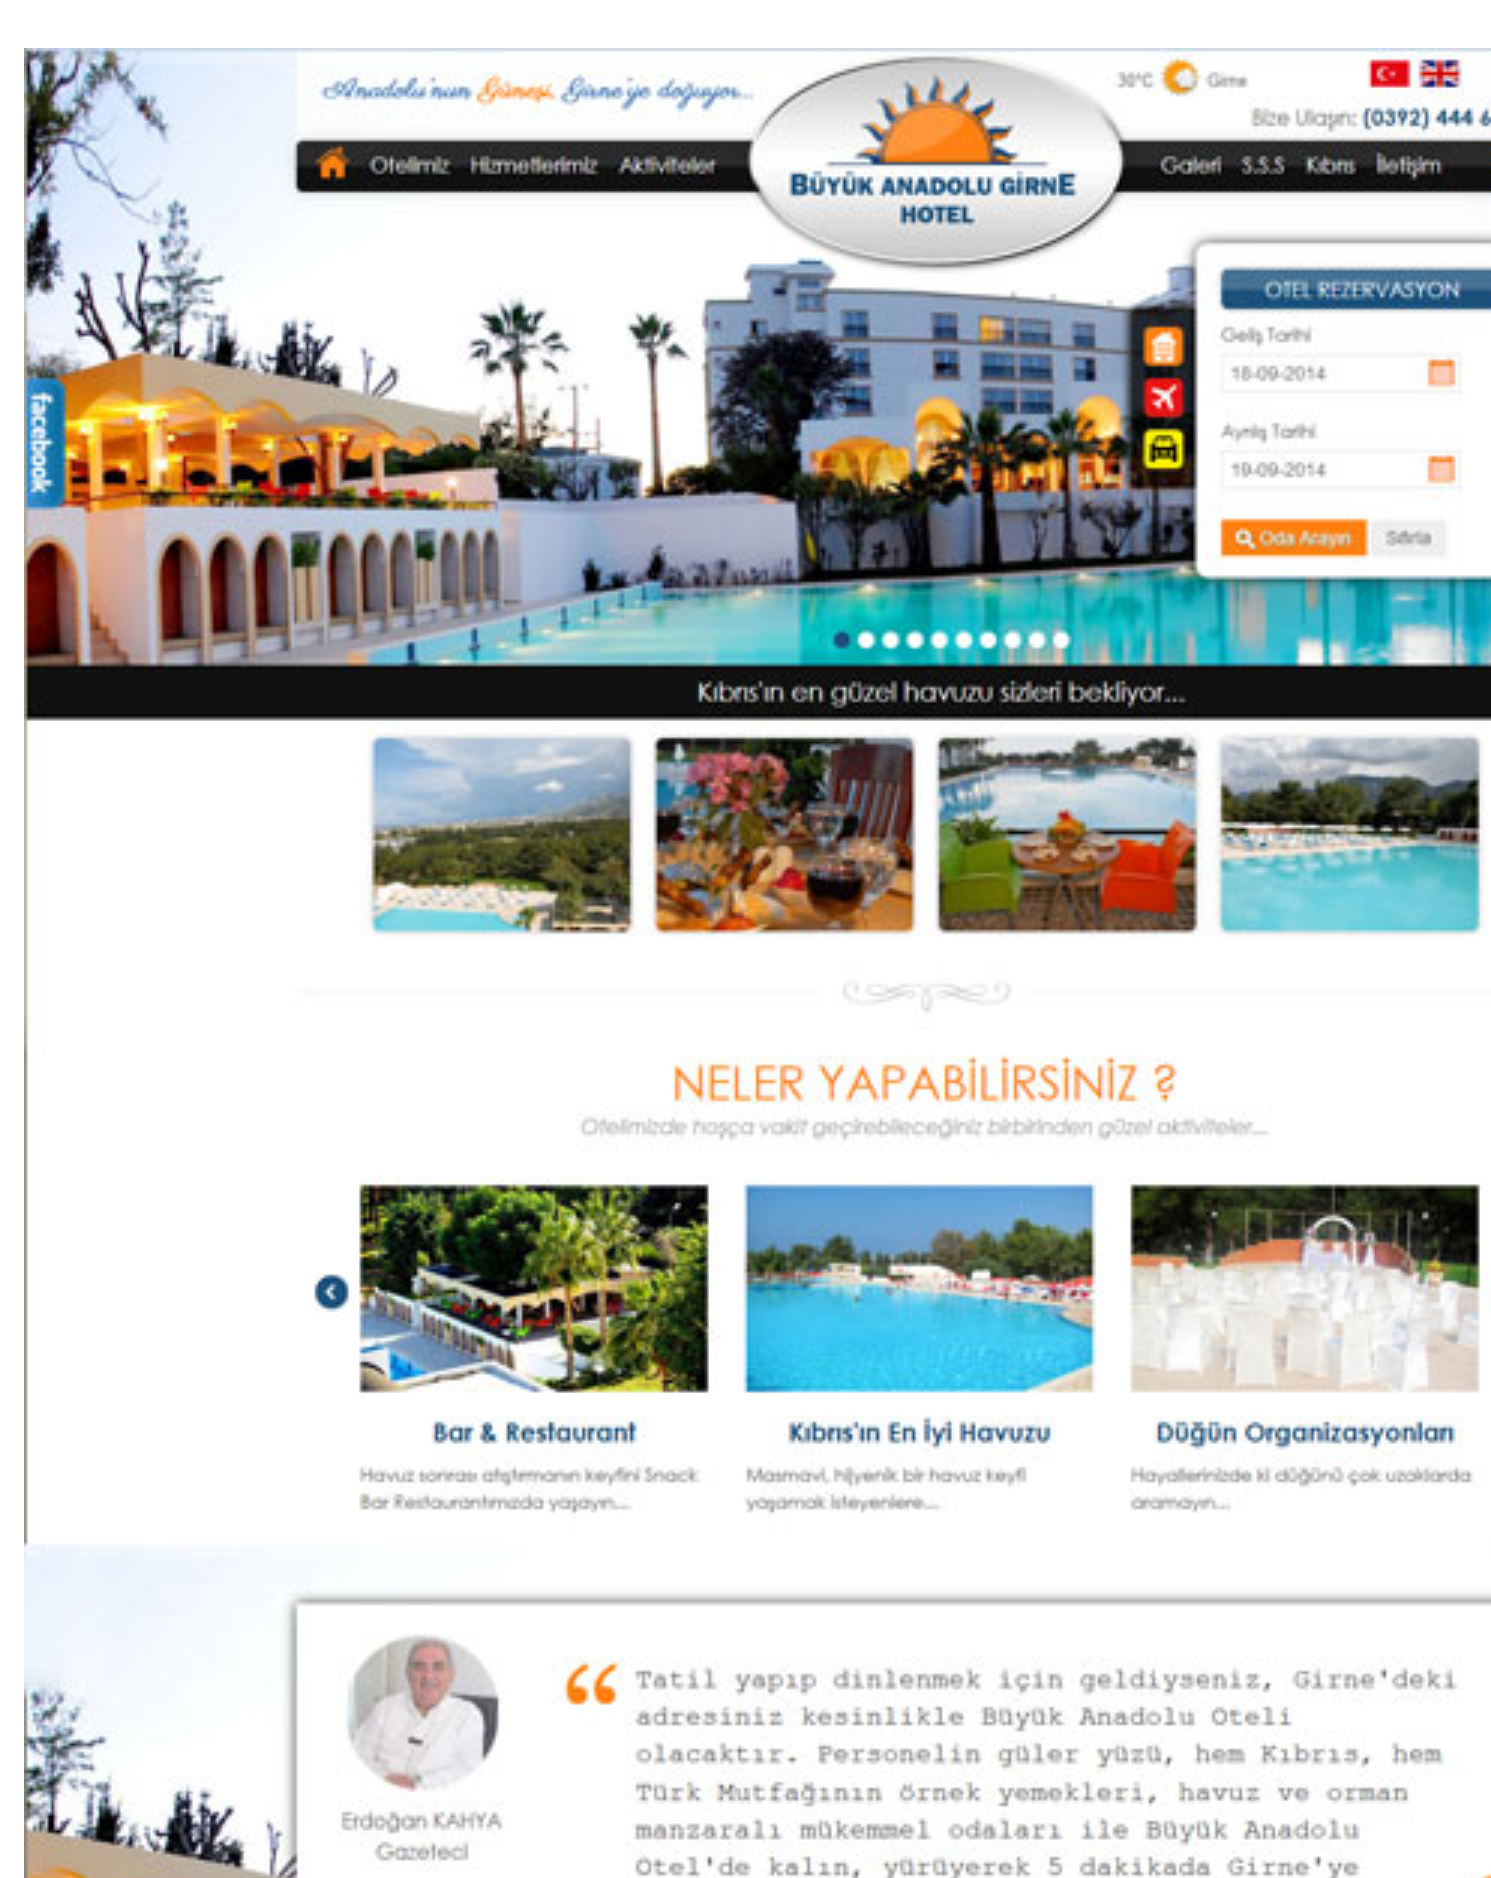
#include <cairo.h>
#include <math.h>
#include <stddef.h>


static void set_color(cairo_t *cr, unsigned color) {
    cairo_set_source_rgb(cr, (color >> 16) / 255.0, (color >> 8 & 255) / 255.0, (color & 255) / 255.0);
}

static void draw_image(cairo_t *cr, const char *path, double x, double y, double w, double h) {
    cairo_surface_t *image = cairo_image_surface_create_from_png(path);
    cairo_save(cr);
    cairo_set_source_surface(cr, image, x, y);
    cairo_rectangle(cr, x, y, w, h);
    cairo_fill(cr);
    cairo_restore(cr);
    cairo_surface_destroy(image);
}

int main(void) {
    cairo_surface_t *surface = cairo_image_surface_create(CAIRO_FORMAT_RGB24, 1491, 1878);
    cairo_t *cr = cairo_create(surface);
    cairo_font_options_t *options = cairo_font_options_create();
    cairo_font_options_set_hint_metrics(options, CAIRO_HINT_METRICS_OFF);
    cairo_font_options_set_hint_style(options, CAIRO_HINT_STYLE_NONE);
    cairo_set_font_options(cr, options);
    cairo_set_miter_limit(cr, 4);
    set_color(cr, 0xFFFFFF);
    cairo_paint(cr);
    draw_image(cr, "assets/img1.png", 24, 48, 1467, 1830);
    cairo_surface_write_to_png(surface, "output.png");
    cairo_font_options_destroy(options);
    cairo_destroy(cr);
    cairo_surface_destroy(surface);
    return 0;
}
